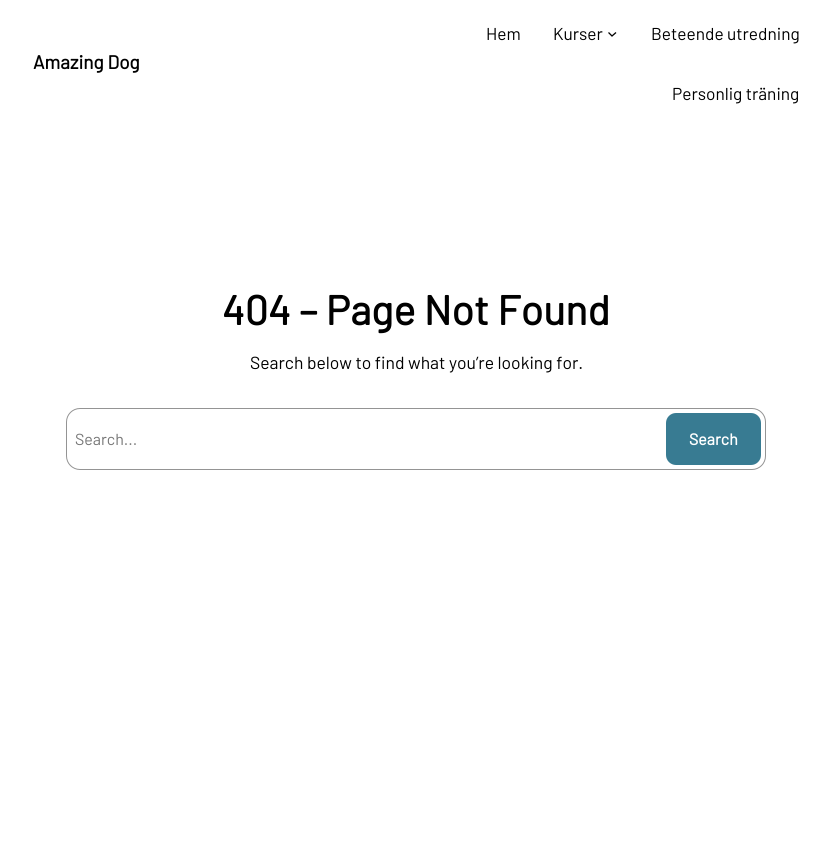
#include <cairo.h>
#include <math.h>
#include <stddef.h>


static void set_color(cairo_t *cr, unsigned color) {
    cairo_set_source_rgb(cr, (color >> 16) / 255.0, (color >> 8 & 255) / 255.0, (color & 255) / 255.0);
}

static void draw_text(cairo_t *cr, double x, double y, const char *s, const char *family, double size, int italic, int bold, unsigned color) {
    cairo_select_font_face(cr, family, italic ? CAIRO_FONT_SLANT_ITALIC : CAIRO_FONT_SLANT_NORMAL,
        bold ? CAIRO_FONT_WEIGHT_BOLD : CAIRO_FONT_WEIGHT_NORMAL);
    cairo_set_font_size(cr, size);
    set_color(cr, color);
    cairo_move_to(cr, x, y);
    cairo_show_text(cr, s);
}

static void rounded_rect(cairo_t *cr, double x, double y, double w, double h, double r) {
    cairo_new_sub_path(cr);
    cairo_arc(cr, x + w - r, y + h - r, r, 0, M_PI / 2);
    cairo_arc(cr, x + r, y + h - r, r, M_PI / 2, M_PI);
    cairo_arc(cr, x + r, y + r, r, M_PI, 1.5 * M_PI);
    cairo_arc(cr, x + w - r, y + r, r, 1.5 * M_PI, 2 * M_PI);
    cairo_close_path(cr);
}

int main(void) {
    cairo_surface_t *surface = cairo_image_surface_create(CAIRO_FORMAT_RGB24, 832, 844);
    cairo_t *cr = cairo_create(surface);
    cairo_font_options_t *options = cairo_font_options_create();
    cairo_font_options_set_hint_metrics(options, CAIRO_HINT_METRICS_OFF);
    cairo_font_options_set_hint_style(options, CAIRO_HINT_STYLE_NONE);
    cairo_set_font_options(cr, options);
    cairo_set_miter_limit(cr, 4);
    set_color(cr, 0xFFFFFF);
    cairo_paint(cr);
    draw_text(cr, 33, 69, "Amazing Dog", "Barlow", 19, 0, 1, 0x000000);
    draw_text(cr, 486, 40, "Hem", "Barlow", 17.25, 0, 0, 0x000000);
    draw_text(cr, 553, 40, "Kurser", "Barlow", 17.25, 0, 0, 0x000000);
    cairo_new_path(cr);
    cairo_move_to(cr, 608.5, 32.5);
    cairo_line_to(cr, 612, 36);
    cairo_line_to(cr, 616, 32.5);
    cairo_set_line_width(cr, 1.3);
    cairo_stroke(cr);
    draw_text(cr, 651, 40, "Beteende utredning", "Barlow", 17.25, 0, 0, 0x000000);
    draw_text(cr, 672, 100, "Personlig träning", "Barlow", 17.25, 0, 0, 0x000000);
    draw_text(cr, 222, 325, "404 – Page Not Found", "Barlow", 41.25, 0, 1, 0x000000);
    draw_text(cr, 250, 369, "Search below to find what you’re looking for.", "Barlow", 17.5, 0, 0, 0x000000);
    rounded_rect(cr, 66.5, 408.5, 699, 61, 13.5);
    set_color(cr, 0x949494);
    cairo_set_line_width(cr, 1);
    cairo_stroke(cr);
    draw_text(cr, 75, 445, "Search...", "Barlow", 16, 0, 0, 0x757575);
    set_color(cr, 0x387B92);
    rounded_rect(cr, 666, 413, 95, 52, 10);
    cairo_fill(cr);
    draw_text(cr, 689, 445, "Search", "Barlow", 16, 0, 1, 0xFFFFFF);
    cairo_surface_write_to_png(surface, "output.png");
    cairo_font_options_destroy(options);
    cairo_destroy(cr);
    cairo_surface_destroy(surface);
    return 0;
}
